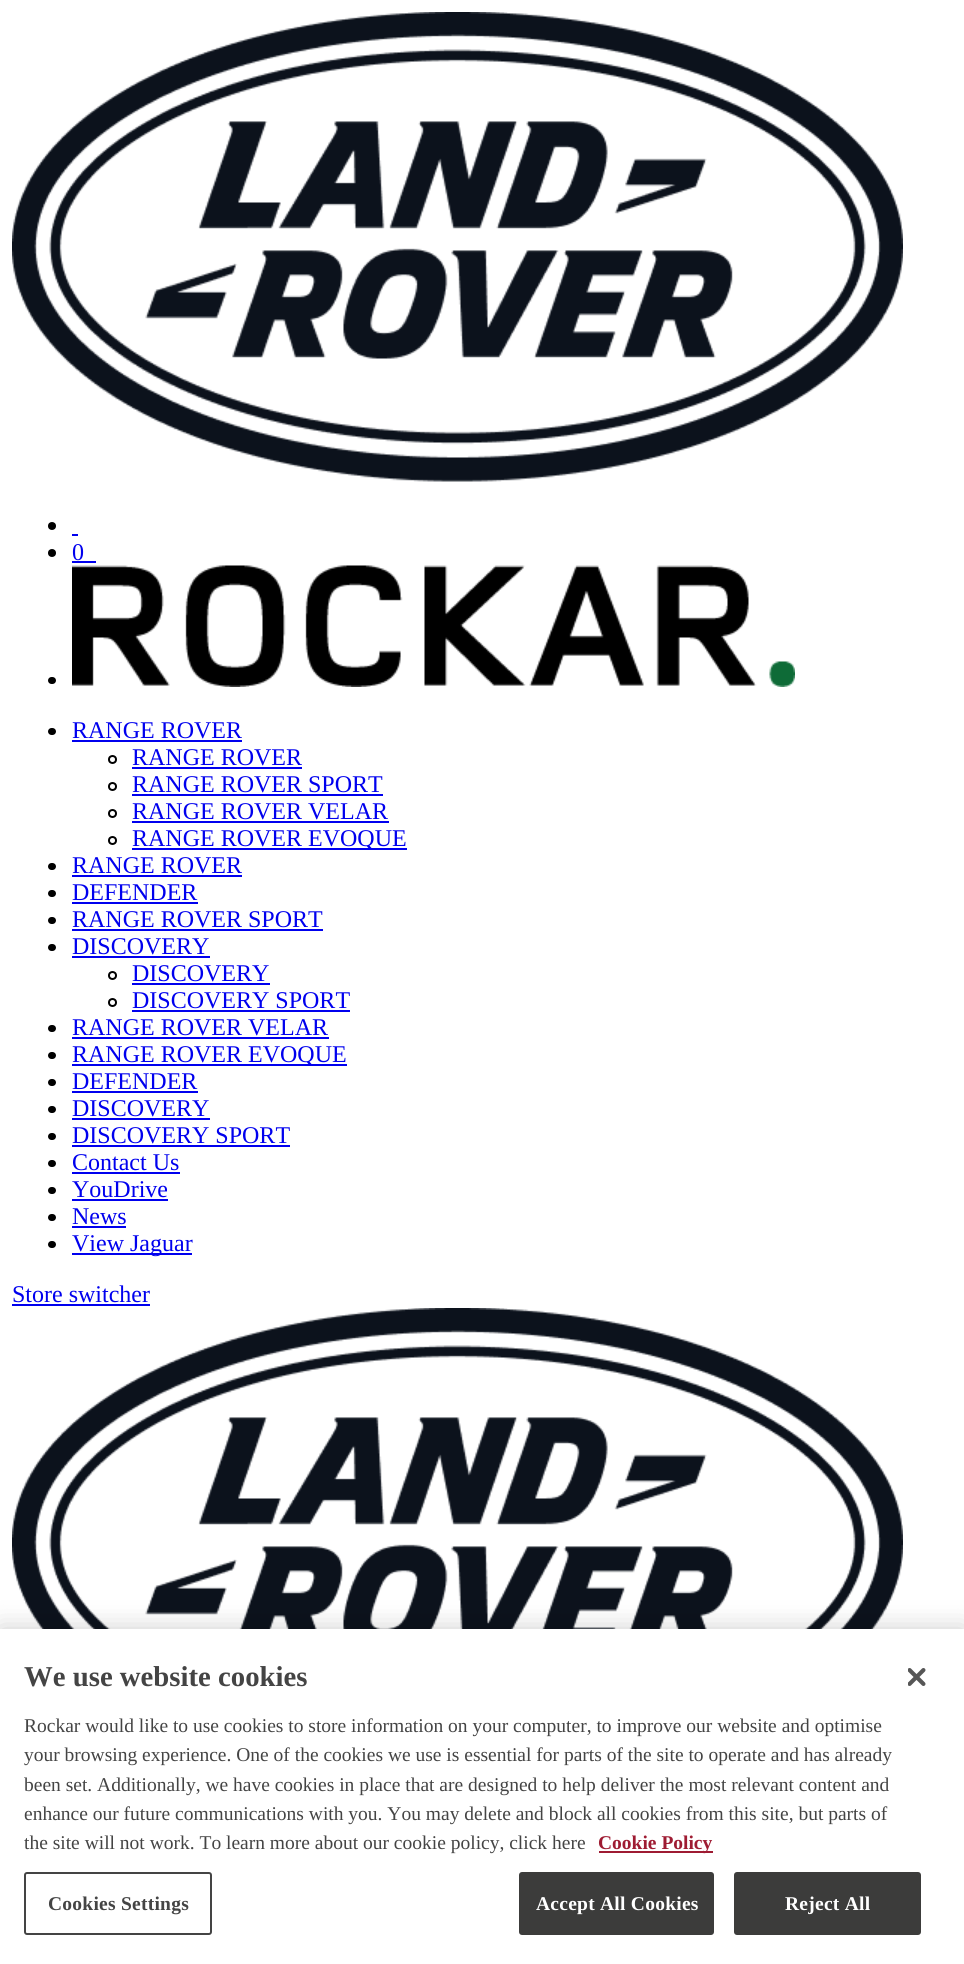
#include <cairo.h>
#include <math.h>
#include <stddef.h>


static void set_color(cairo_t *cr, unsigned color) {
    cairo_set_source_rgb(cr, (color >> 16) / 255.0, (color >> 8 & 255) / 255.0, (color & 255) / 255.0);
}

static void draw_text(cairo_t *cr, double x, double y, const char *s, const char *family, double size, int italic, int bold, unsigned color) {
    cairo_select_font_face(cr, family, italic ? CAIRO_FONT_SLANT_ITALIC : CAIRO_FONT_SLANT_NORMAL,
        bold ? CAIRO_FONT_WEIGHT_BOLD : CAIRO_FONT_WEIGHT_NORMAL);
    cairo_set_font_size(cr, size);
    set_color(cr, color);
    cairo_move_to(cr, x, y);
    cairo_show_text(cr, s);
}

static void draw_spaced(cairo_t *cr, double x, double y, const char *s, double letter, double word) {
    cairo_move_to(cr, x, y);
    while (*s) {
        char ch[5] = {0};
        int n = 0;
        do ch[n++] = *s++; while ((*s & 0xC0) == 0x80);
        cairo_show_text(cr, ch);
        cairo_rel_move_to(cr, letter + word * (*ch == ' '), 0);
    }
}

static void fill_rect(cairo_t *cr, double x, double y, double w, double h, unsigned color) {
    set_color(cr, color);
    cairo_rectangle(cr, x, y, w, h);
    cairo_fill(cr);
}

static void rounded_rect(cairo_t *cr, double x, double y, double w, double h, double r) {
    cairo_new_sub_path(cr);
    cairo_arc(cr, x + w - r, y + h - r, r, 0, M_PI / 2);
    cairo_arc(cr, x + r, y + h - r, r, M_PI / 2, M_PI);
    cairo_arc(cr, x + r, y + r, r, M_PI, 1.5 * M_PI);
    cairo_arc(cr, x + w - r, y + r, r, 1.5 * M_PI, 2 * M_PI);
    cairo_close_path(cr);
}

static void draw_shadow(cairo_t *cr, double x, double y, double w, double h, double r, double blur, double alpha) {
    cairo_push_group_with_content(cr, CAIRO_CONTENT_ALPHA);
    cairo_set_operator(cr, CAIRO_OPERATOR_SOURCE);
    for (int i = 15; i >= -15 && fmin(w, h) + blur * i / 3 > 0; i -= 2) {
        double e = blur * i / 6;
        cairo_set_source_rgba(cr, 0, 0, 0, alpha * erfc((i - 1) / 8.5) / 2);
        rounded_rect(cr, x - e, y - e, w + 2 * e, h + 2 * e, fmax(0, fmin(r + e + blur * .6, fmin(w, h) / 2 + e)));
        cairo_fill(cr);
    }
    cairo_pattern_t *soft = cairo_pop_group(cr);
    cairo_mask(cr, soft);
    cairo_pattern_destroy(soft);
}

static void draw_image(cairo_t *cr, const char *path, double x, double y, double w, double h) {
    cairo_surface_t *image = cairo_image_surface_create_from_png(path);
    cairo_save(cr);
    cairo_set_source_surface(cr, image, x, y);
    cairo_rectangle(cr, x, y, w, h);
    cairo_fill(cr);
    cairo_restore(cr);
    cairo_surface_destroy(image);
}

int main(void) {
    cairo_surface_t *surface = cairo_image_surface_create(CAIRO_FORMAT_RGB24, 964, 1964);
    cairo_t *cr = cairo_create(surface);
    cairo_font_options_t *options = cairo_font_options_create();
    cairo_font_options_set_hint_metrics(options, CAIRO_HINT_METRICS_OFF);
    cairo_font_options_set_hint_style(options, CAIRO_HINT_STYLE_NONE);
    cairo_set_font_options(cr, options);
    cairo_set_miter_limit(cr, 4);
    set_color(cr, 0xFFFFFF);
    cairo_paint(cr);
    draw_image(cr, "assets/img1.png", 12, 12, 891, 470);
    set_color(cr, 0x000000);
    cairo_arc(cr, 52, 526, 4, 0, 2 * M_PI);
    cairo_fill(cr);
    fill_rect(cr, 72, 534, 6, 2, 0x0000EE);
    set_color(cr, 0x000000);
    cairo_arc(cr, 52, 553, 4, 0, 2 * M_PI);
    cairo_fill(cr);
    draw_text(cr, 72, 560, "0", "Liberation Serif", 24, 0, 0, 0x0000EE);
    fill_rect(cr, 72, 561, 24, 2, 0x0000EE);
    set_color(cr, 0x000000);
    rounded_rect(cr, 48, 677, 8, 7, 3.5);
    cairo_fill(cr);
    draw_image(cr, "assets/img2.png", 72, 565, 723, 122);
    rounded_rect(cr, 48, 728, 8, 7, 3.5);
    cairo_fill(cr);
    draw_text(cr, 72, 738, "RANGE ROVER", "Liberation Serif", 24, 0, 0, 0x0000EE);
    fill_rect(cr, 72, 740, 170, 2, 0x0000EE);
    cairo_new_path(cr);
    cairo_arc(cr, 112.5, 759.5, 3.5, 0, 2 * M_PI);
    set_color(cr, 0x000000);
    cairo_stroke(cr);
    draw_text(cr, 132, 765, "RANGE ROVER", "Liberation Serif", 24, 0, 0, 0x0000EE);
    fill_rect(cr, 132, 767, 170, 2, 0x0000EE);
    cairo_new_path(cr);
    cairo_arc(cr, 112.5, 786.5, 3.5, 0, 2 * M_PI);
    set_color(cr, 0x000000);
    cairo_stroke(cr);
    draw_text(cr, 132, 792, "RANGE ROVER SPORT", "Liberation Serif", 24, 0, 0, 0x0000EE);
    fill_rect(cr, 132, 794, 251, 2, 0x0000EE);
    cairo_new_path(cr);
    cairo_arc(cr, 112.5, 813.5, 3.5, 0, 2 * M_PI);
    set_color(cr, 0x000000);
    cairo_stroke(cr);
    draw_text(cr, 132, 819, "RANGE ROVER VELAR", "Liberation Serif", 24, 0, 0, 0x0000EE);
    fill_rect(cr, 132, 821, 257, 2, 0x0000EE);
    cairo_new_path(cr);
    cairo_arc(cr, 112.5, 840.5, 3.5, 0, 2 * M_PI);
    set_color(cr, 0x000000);
    cairo_stroke(cr);
    fill_rect(cr, 132, 848, 275, 2, 0x0000EE);
    draw_text(cr, 132, 846, "RANGE ROVER EVOQUE", "Liberation Serif", 24, 0, 0, 0x0000EE);
    set_color(cr, 0x000000);
    rounded_rect(cr, 48, 863, 8, 7, 3.5);
    cairo_fill(cr);
    draw_text(cr, 72, 873, "RANGE ROVER", "Liberation Serif", 24, 0, 0, 0x0000EE);
    fill_rect(cr, 72, 875, 170, 2, 0x0000EE);
    set_color(cr, 0x000000);
    rounded_rect(cr, 48, 890, 8, 7, 3.5);
    cairo_fill(cr);
    draw_text(cr, 72, 900, "DEFENDER", "Liberation Serif", 24, 0, 0, 0x0000EE);
    fill_rect(cr, 72, 902, 126, 2, 0x0000EE);
    set_color(cr, 0x000000);
    rounded_rect(cr, 48, 917, 8, 7, 3.5);
    cairo_fill(cr);
    draw_text(cr, 72, 927, "RANGE ROVER SPORT", "Liberation Serif", 24, 0, 0, 0x0000EE);
    fill_rect(cr, 72, 929, 251, 2, 0x0000EE);
    set_color(cr, 0x000000);
    rounded_rect(cr, 48, 944, 8, 7, 3.5);
    cairo_fill(cr);
    draw_text(cr, 72, 954, "DISCOVERY", "Liberation Serif", 24, 0, 0, 0x0000EE);
    fill_rect(cr, 72, 956, 138, 2, 0x0000EE);
    cairo_new_path(cr);
    cairo_arc(cr, 112.5, 975.5, 3.5, 0, 2 * M_PI);
    set_color(cr, 0x000000);
    cairo_stroke(cr);
    draw_text(cr, 132, 981, "DISCOVERY", "Liberation Serif", 24, 0, 0, 0x0000EE);
    fill_rect(cr, 132, 983, 138, 2, 0x0000EE);
    cairo_new_path(cr);
    cairo_arc(cr, 112.5, 1002.5, 3.5, 0, 2 * M_PI);
    set_color(cr, 0x000000);
    cairo_stroke(cr);
    draw_text(cr, 132, 1008, "DISCOVERY SPORT", "Liberation Serif", 24, 0, 0, 0x0000EE);
    fill_rect(cr, 132, 1010, 218, 2, 0x0000EE);
    set_color(cr, 0x000000);
    rounded_rect(cr, 48, 1025, 8, 7, 3.5);
    cairo_fill(cr);
    draw_text(cr, 72, 1035, "RANGE ROVER VELAR", "Liberation Serif", 24, 0, 0, 0x0000EE);
    fill_rect(cr, 72, 1037, 257, 2, 0x0000EE);
    set_color(cr, 0x000000);
    rounded_rect(cr, 48, 1052, 8, 7, 3.5);
    cairo_fill(cr);
    fill_rect(cr, 72, 1064, 275, 2, 0x0000EE);
    draw_text(cr, 72, 1062, "RANGE ROVER EVOQUE", "Liberation Serif", 24, 0, 0, 0x0000EE);
    set_color(cr, 0x000000);
    rounded_rect(cr, 48, 1079, 8, 7, 3.5);
    cairo_fill(cr);
    draw_text(cr, 72, 1089, "DEFENDER", "Liberation Serif", 24, 0, 0, 0x0000EE);
    fill_rect(cr, 72, 1091, 126, 2, 0x0000EE);
    set_color(cr, 0x000000);
    rounded_rect(cr, 48, 1106, 8, 7, 3.5);
    cairo_fill(cr);
    draw_text(cr, 72, 1116, "DISCOVERY", "Liberation Serif", 24, 0, 0, 0x0000EE);
    fill_rect(cr, 72, 1118, 138, 2, 0x0000EE);
    set_color(cr, 0x000000);
    rounded_rect(cr, 48, 1133, 8, 7, 3.5);
    cairo_fill(cr);
    draw_text(cr, 72, 1143, "DISCOVERY SPORT", "Liberation Serif", 24, 0, 0, 0x0000EE);
    fill_rect(cr, 72, 1145, 218, 2, 0x0000EE);
    set_color(cr, 0x000000);
    rounded_rect(cr, 48, 1160, 8, 7, 3.5);
    cairo_fill(cr);
    draw_text(cr, 72, 1170, "Contact Us", "Liberation Serif", 24, 0, 0, 0x0000EE);
    fill_rect(cr, 72, 1172, 108, 2, 0x0000EE);
    set_color(cr, 0x000000);
    rounded_rect(cr, 48, 1187, 8, 7, 3.5);
    cairo_fill(cr);
    draw_text(cr, 72, 1197, "YouDrive", "Liberation Serif", 24, 0, 0, 0x0000EE);
    fill_rect(cr, 72, 1199, 96, 2, 0x0000EE);
    set_color(cr, 0x000000);
    rounded_rect(cr, 48, 1214, 8, 7, 3.5);
    cairo_fill(cr);
    draw_text(cr, 72, 1224, "News", "Liberation Serif", 24, 0, 0, 0x0000EE);
    fill_rect(cr, 72, 1226, 54, 2, 0x0000EE);
    set_color(cr, 0x000000);
    rounded_rect(cr, 48, 1241, 8, 7, 3.5);
    cairo_fill(cr);
    fill_rect(cr, 72, 1253, 120, 2, 0x0000EE);
    draw_text(cr, 72, 1251, "View Jaguar", "Liberation Serif", 24, 0, 0, 0x0000EE);
    draw_text(cr, 12, 1302, "Store switcher", "Liberation Serif", 24, 0, 0, 0x0000EE);
    fill_rect(cr, 12, 1304, 138, 2, 0x0000EE);
    draw_image(cr, "assets/img3.png", 12, 1308, 891, 321);
    set_color(cr, 0x000000);
    draw_shadow(cr, 0, 1629, 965, 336, 0, 13.5, 0.2);
    fill_rect(cr, 0, 1629, 964, 335, 0xFFFFFF);
    draw_text(cr, 24, 1686, "We use website cookies", "Liberation Serif", 28.75, 0, 1, 0x444444);
    draw_text(cr, 24, 1732, "Rockar would like to use cookies to store information on your computer, to improve our website and optimise", "Liberation Serif", 19.5, 0, 0, 0x444444);
    draw_text(cr, 24, 1761, "your browsing experience. One of the cookies we use is essential for parts of the site to operate and has already", "Liberation Serif", 19.5, 0, 0, 0x444444);
    draw_text(cr, 24, 1791, "been set. Additionally, we have cookies in place that are designed to help deliver the most relevant content and", "Liberation Serif", 19.5, 0, 0, 0x444444);
    draw_text(cr, 24, 1820, "enhance our future communications with you. You may delete and block all cookies from this site, but parts of", "Liberation Serif", 19.5, 0, 0, 0x444444);
    draw_text(cr, 24, 1849, "the site will not work. To learn more about our cookie policy, click here", "Liberation Serif", 19.5, 0, 0, 0x444444);
    fill_rect(cr, 599, 1851, 114, 2, 0x9E1B32);
    draw_text(cr, 598, 1849, "Cookie Policy", "Liberation Serif", 19.5, 0, 1, 0x9E1B32);
    rounded_rect(cr, 25, 1873, 186, 61, 2);
    set_color(cr, 0x444444);
    cairo_stroke(cr);
    draw_spaced(cr, 48, 1910, "Cookies Settings", 0.25, 0);
    set_color(cr, 0x3C3C3B);
    rounded_rect(cr, 520, 1873, 193, 61, 2);
    cairo_fill_preserve(cr);
    cairo_stroke(cr);
    set_color(cr, 0xFFFFFF);
    draw_spaced(cr, 536, 1910, "Accept All Cookies", 0.25, 0);
    set_color(cr, 0x3C3C3B);
    rounded_rect(cr, 735, 1873, 185, 61, 2);
    cairo_fill_preserve(cr);
    cairo_stroke(cr);
    set_color(cr, 0xFFFFFF);
    draw_spaced(cr, 785, 1910, "Reject All", 0.25, 0);
    draw_image(cr, "assets/img4.png", 908, 1668, 18, 18);
    cairo_surface_write_to_png(surface, "output.png");
    cairo_font_options_destroy(options);
    cairo_destroy(cr);
    cairo_surface_destroy(surface);
    return 0;
}
